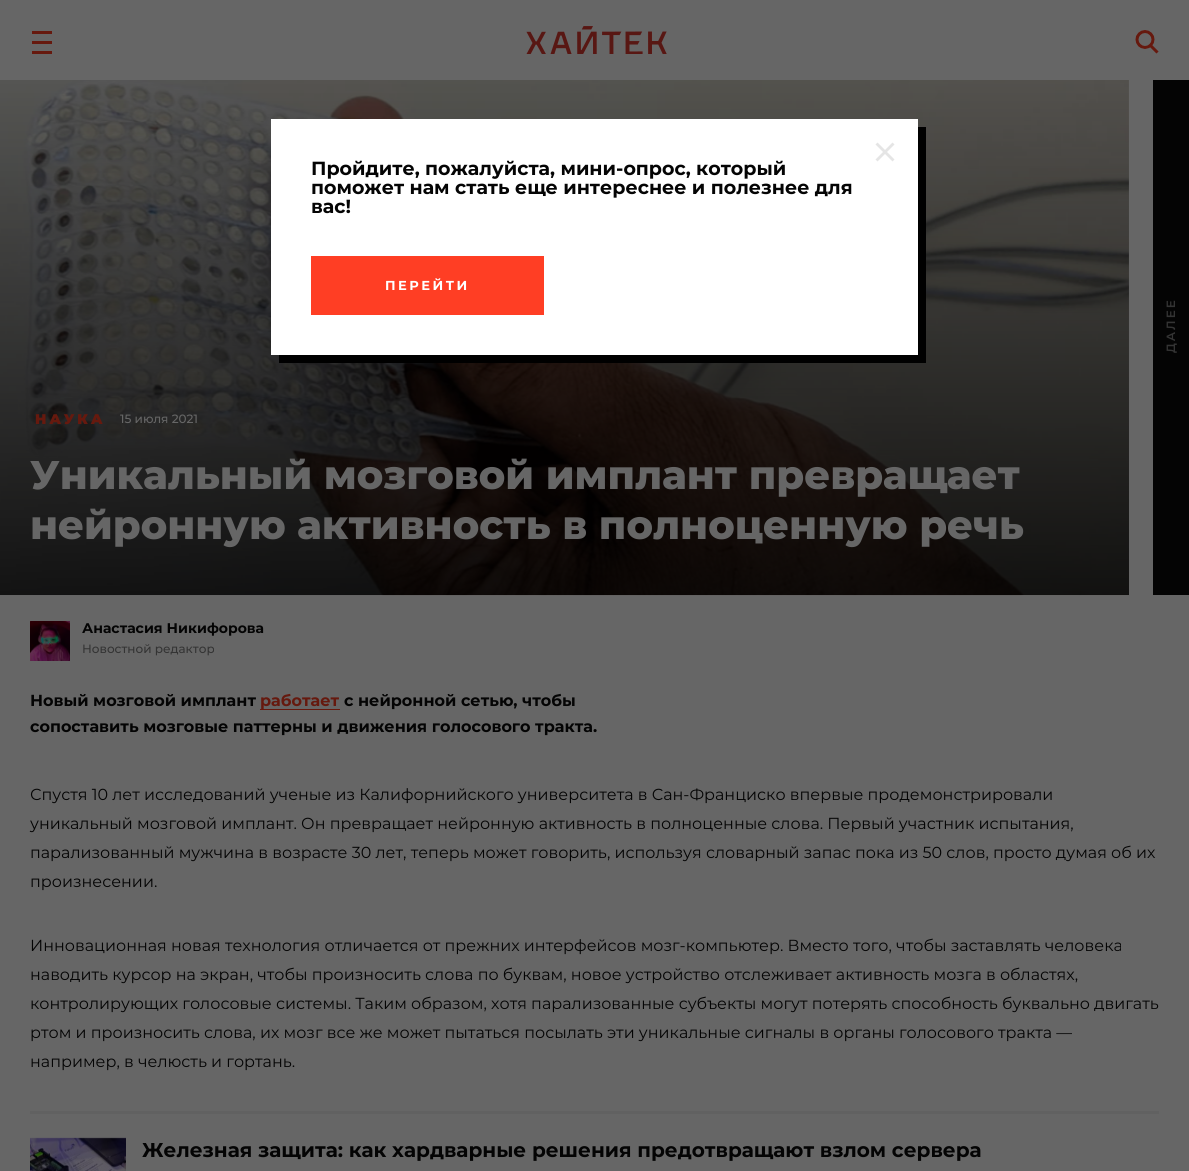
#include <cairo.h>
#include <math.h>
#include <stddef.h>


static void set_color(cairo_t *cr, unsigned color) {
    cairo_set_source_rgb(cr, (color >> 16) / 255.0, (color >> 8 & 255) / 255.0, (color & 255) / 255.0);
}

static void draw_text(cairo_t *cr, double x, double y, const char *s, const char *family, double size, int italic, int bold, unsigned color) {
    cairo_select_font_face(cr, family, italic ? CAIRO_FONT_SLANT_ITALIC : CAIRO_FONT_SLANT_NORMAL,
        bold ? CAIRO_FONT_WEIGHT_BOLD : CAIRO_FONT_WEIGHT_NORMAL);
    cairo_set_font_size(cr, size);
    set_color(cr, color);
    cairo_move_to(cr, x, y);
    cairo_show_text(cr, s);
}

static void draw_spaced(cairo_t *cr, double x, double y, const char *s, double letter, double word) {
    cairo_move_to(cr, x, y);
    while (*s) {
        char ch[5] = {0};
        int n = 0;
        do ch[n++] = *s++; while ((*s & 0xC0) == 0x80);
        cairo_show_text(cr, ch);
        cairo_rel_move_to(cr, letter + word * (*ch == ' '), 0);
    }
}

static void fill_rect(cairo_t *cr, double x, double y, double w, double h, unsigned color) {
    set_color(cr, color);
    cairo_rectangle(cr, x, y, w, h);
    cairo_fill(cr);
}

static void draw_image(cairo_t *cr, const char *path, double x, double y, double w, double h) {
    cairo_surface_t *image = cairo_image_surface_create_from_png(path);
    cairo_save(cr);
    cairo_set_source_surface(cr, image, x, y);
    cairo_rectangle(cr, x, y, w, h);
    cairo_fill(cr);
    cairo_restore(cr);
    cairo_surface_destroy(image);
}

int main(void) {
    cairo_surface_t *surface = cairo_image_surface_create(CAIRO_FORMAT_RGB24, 1189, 1171);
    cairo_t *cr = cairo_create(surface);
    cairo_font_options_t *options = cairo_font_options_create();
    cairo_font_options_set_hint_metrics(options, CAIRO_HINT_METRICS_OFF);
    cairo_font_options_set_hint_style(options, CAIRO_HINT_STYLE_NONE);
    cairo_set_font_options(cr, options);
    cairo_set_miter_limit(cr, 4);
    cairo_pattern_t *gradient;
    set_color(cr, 0x666666);
    cairo_paint(cr);
    fill_rect(cr, 32, 41, 20, 3, 0x66190E);
    fill_rect(cr, 32, 31, 20, 3, 0x66190E);
    fill_rect(cr, 32, 51, 20, 3, 0x66190E);
    draw_image(cr, "assets/img1.png", 526, 26, 141, 28);
    draw_image(cr, "assets/img2.png", 1135, 30, 24, 24);
    draw_image(cr, "assets/img3.png", 0, 80, 1129, 516);
    gradient = cairo_pattern_create_linear(565, 56, 565, 595);
    cairo_pattern_add_color_stop_rgba(gradient, 0, 0, 0, 0, 0);
    cairo_pattern_add_color_stop_rgba(gradient, 1, 0, 0, 0, 0.78);
    cairo_set_source(cr, gradient);
    cairo_pattern_destroy(gradient);
    cairo_rectangle(cr, 0, 80, 1129, 515);
    cairo_fill(cr);
    set_color(cr, 0x000000);
    cairo_new_path(cr);
    cairo_move_to(cr, 279, 355);
    cairo_line_to(cr, 279, 363);
    cairo_line_to(cr, 926, 363);
    cairo_line_to(cr, 926, 127);
    cairo_line_to(cr, 918, 127);
    cairo_line_to(cr, 918, 355);
    cairo_close_path(cr);
    cairo_fill(cr);
    fill_rect(cr, 271, 119, 647, 236, 0xFFFFFF);
    set_color(cr, 0xE5E5E5);
    cairo_new_path(cr);
    cairo_move_to(cr, 892.5, 142.5);
    cairo_line_to(cr, 894.5, 144.5);
    cairo_line_to(cr, 877.5, 161.5);
    cairo_line_to(cr, 875.5, 159.5);
    cairo_close_path(cr);
    cairo_fill(cr);
    cairo_new_path(cr);
    cairo_move_to(cr, 875.5, 144.5);
    cairo_line_to(cr, 877.5, 142.5);
    cairo_line_to(cr, 894.5, 159.5);
    cairo_line_to(cr, 892.5, 161.5);
    cairo_close_path(cr);
    cairo_fill(cr);
    draw_text(cr, 311, 175, "Пройдите, пожалуйста, мини-опрос, который", "Montserrat", 19, 0, 1, 0x040404);
    draw_text(cr, 311, 194, "поможет нам стать еще интереснее и полезнее для", "Montserrat", 19, 0, 1, 0x040404);
    draw_text(cr, 311, 213, "вас!", "Montserrat", 19, 0, 1, 0x040404);
    fill_rect(cr, 311, 256, 233, 59, 0xFF3E24);
    cairo_set_font_size(cr, 13);
    set_color(cr, 0xFFFFFF);
    draw_spaced(cr, 385, 290, "ПЕРЕЙТИ", 2.5, 0);
    fill_rect(cr, 1153, 80, 36, 515, 0x040404);
    cairo_select_font_face(cr, "Montserrat SemiBold", CAIRO_FONT_SLANT_NORMAL, CAIRO_FONT_WEIGHT_NORMAL);
    cairo_set_font_size(cr, 12);
    set_color(cr, 0x343434);
    cairo_save(cr);
    cairo_translate(cr, 1175, 353);
    cairo_rotate(cr, -90 * M_PI / 180);
    draw_spaced(cr, 0, 0, "ДАЛЕЕ", 2, 0);
    cairo_restore(cr);
    cairo_select_font_face(cr, "Montserrat Black", CAIRO_FONT_SLANT_NORMAL, CAIRO_FONT_WEIGHT_NORMAL);
    cairo_set_font_size(cr, 14);
    set_color(cr, 0x66190E);
    draw_spaced(cr, 35, 424, "НАУКА", 2.75, 0);
    draw_text(cr, 120, 423, "15 июля 2021", "Montserrat Medium", 12, 0, 0, 0x666666);
    draw_text(cr, 30, 489, "Уникальный мозговой имплант превращает", "Montserrat ExtraBold", 40, 0, 0, 0x666666);
    draw_text(cr, 30, 539, "нейронную активность в полноценную речь", "Montserrat ExtraBold", 40, 0, 0, 0x666666);
    draw_image(cr, "assets/img4.png", 30, 621, 40, 40);
    draw_text(cr, 82, 633, "Анастасия Никифорова", "Montserrat", 14, 0, 1, 0x040404);
    draw_text(cr, 82, 653, "Новостной редактор", "Montserrat Medium", 12, 0, 0, 0x343434);
    draw_text(cr, 30, 706, "Новый мозговой имплант", "Montserrat", 16, 0, 1, 0x040404);
    fill_rect(cr, 260, 709, 80, 1, 0x66190E);
    draw_text(cr, 260, 706, "работает", "Montserrat", 16, 0, 1, 0x66190E);
    draw_text(cr, 344, 706, "с нейронной сетью, чтобы", "Montserrat", 16, 0, 1, 0x040404);
    draw_text(cr, 30, 732, "сопоставить мозговые паттерны и движения голосового тракта.", "Montserrat", 16, 0, 1, 0x040404);
    draw_text(cr, 30, 800, "Спустя 10 лет исследований ученые из Калифорнийского университета в Сан-Франциско впервые продемонстрировали", "Montserrat", 16, 0, 0, 0x040404);
    draw_text(cr, 30, 829, "уникальный мозговой имплант. Он превращает нейронную активность в полноценные слова. Первый участник испытания,", "Montserrat", 16, 0, 0, 0x040404);
    draw_text(cr, 30, 858, "парализованный мужчина в возрасте 30 лет, теперь может говорить, используя словарный запас пока из 50 слов, просто думая об их", "Montserrat", 16, 0, 0, 0x040404);
    draw_text(cr, 30, 887, "произнесении.", "Montserrat", 16, 0, 0, 0x040404);
    draw_text(cr, 30, 951, "Инновационная новая технология отличается от прежних интерфейсов мозг-компьютер. Вместо того, чтобы заставлять человека", "Montserrat", 16, 0, 0, 0x040404);
    draw_text(cr, 30, 980, "наводить курсор на экран, чтобы произносить слова по буквам, новое устройство отслеживает активность мозга в областях,", "Montserrat", 16, 0, 0, 0x040404);
    draw_text(cr, 30, 1009, "контролирующих голосовые системы. Таким образом, хотя парализованные субъекты могут потерять способность буквально двигать", "Montserrat", 16, 0, 0, 0x040404);
    draw_text(cr, 30, 1038, "ртом и произносить слова, их мозг все же может пытаться посылать эти уникальные сигналы в органы голосового тракта —", "Montserrat", 16, 0, 0, 0x040404);
    draw_text(cr, 30, 1067, "например, в челюсть и гортань.", "Montserrat", 16, 0, 0, 0x040404);
    fill_rect(cr, 30, 1111, 1129, 3, 0x616161);
    draw_image(cr, "assets/img5.png", 30, 1137, 96, 34);
    draw_text(cr, 142, 1157, "Железная защита: как хардварные решения предотвращают взлом сервера", "Montserrat", 20, 0, 1, 0x040404);
    cairo_surface_write_to_png(surface, "output.png");
    cairo_font_options_destroy(options);
    cairo_destroy(cr);
    cairo_surface_destroy(surface);
    return 0;
}
